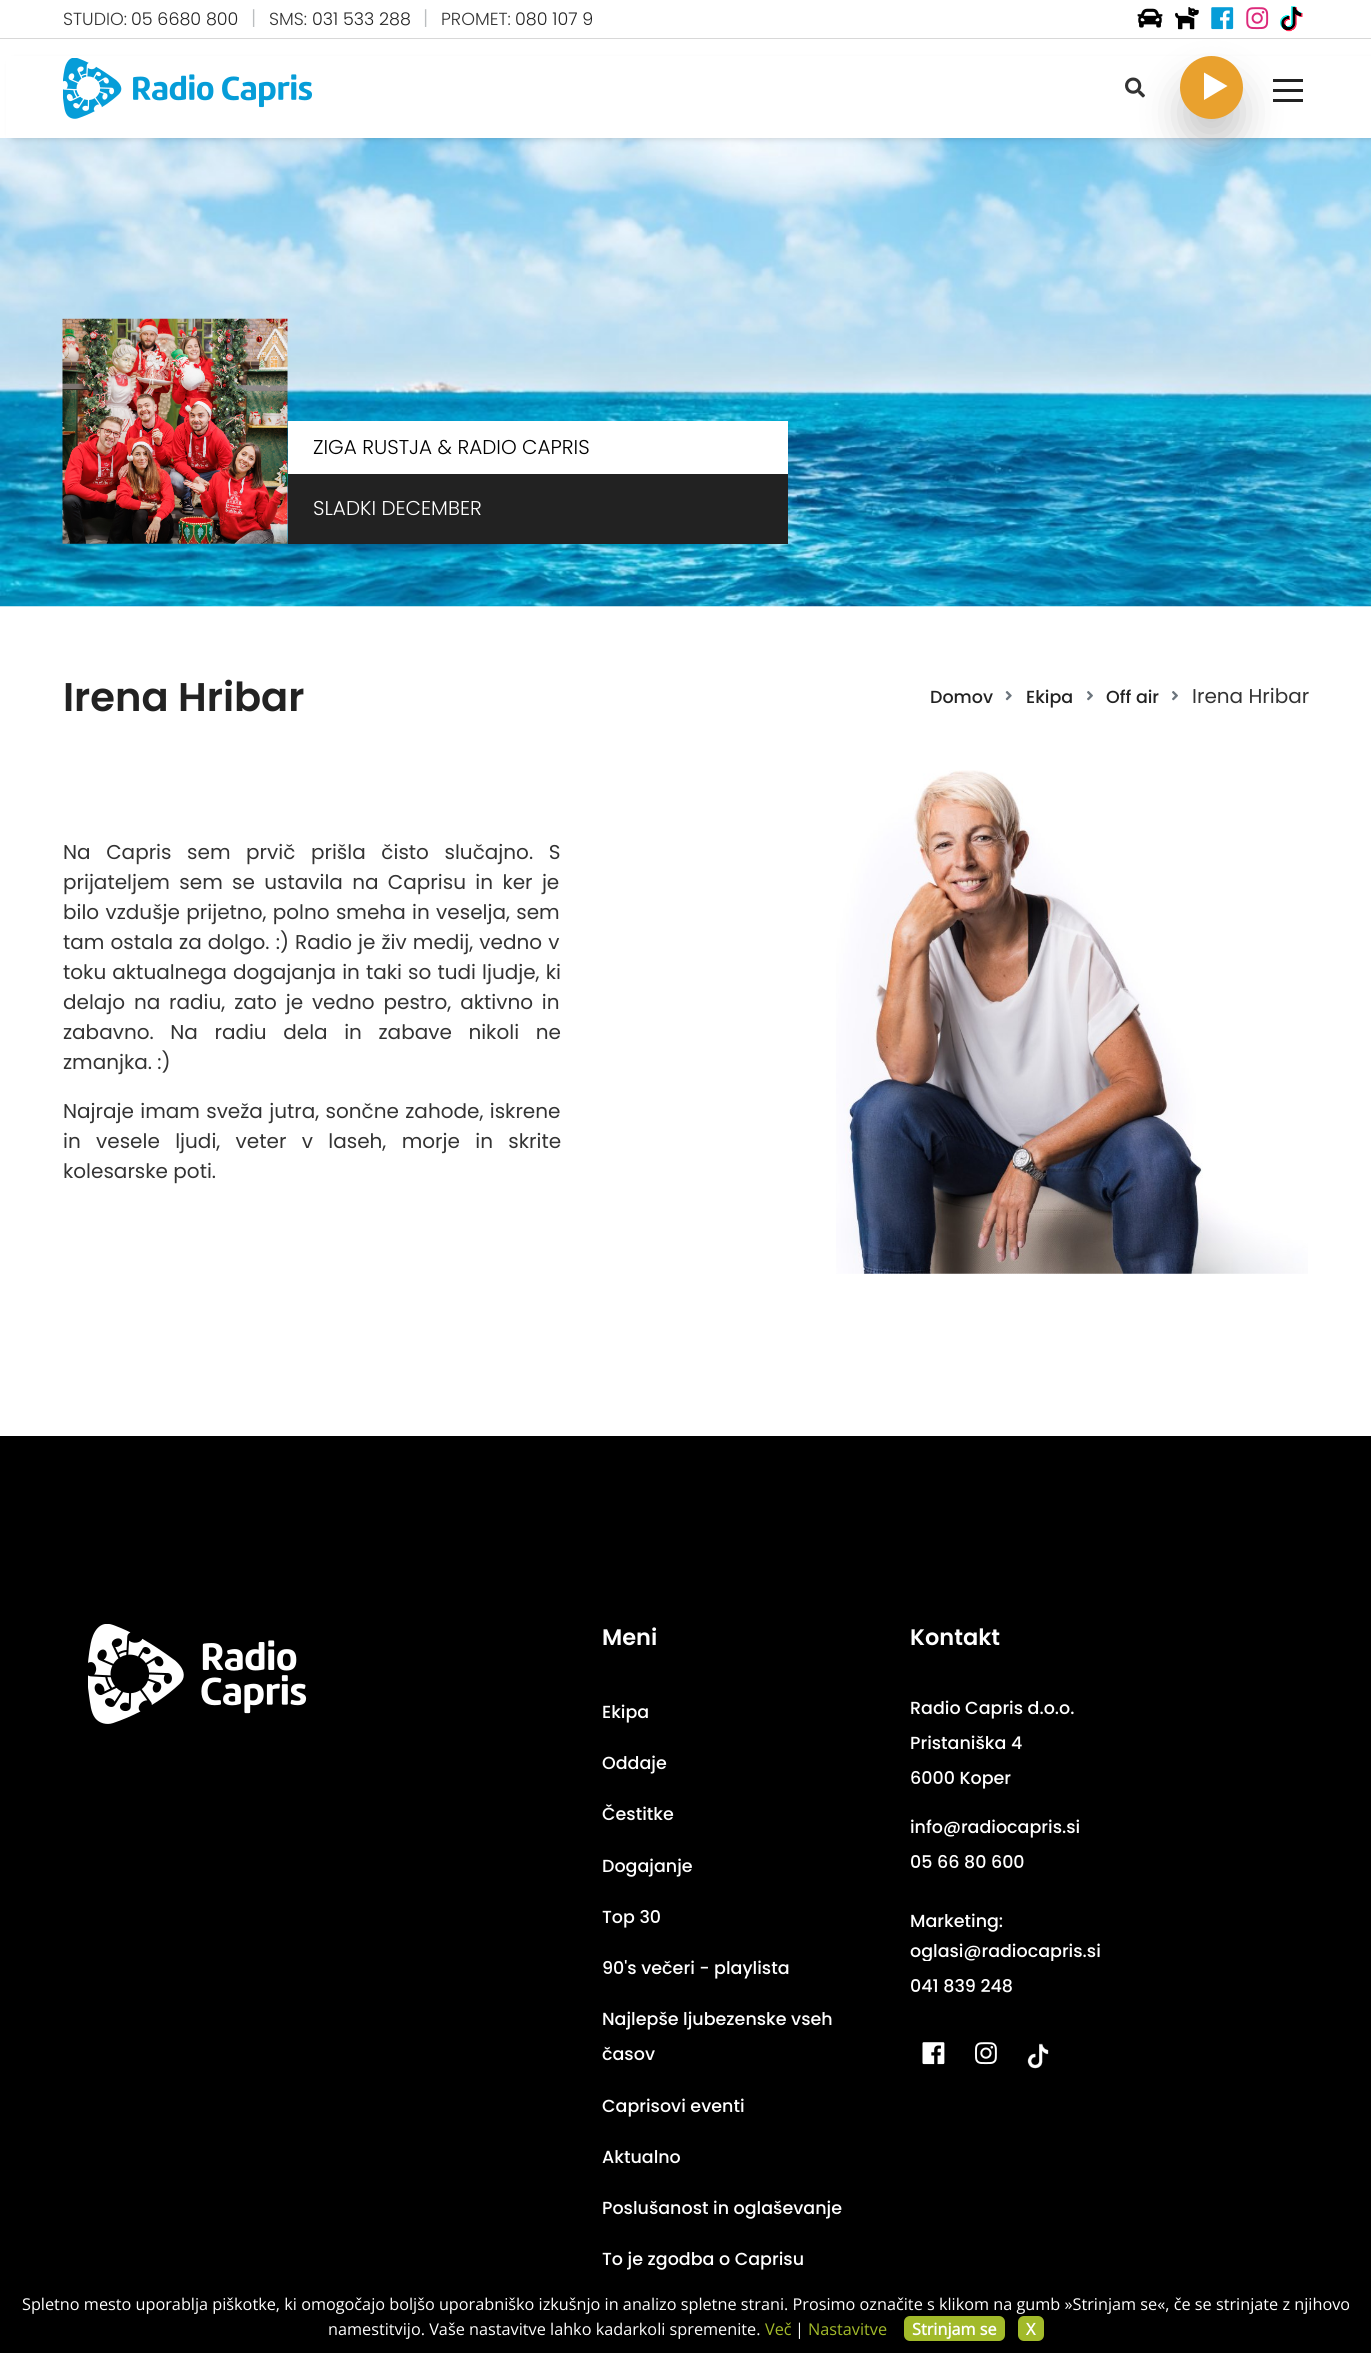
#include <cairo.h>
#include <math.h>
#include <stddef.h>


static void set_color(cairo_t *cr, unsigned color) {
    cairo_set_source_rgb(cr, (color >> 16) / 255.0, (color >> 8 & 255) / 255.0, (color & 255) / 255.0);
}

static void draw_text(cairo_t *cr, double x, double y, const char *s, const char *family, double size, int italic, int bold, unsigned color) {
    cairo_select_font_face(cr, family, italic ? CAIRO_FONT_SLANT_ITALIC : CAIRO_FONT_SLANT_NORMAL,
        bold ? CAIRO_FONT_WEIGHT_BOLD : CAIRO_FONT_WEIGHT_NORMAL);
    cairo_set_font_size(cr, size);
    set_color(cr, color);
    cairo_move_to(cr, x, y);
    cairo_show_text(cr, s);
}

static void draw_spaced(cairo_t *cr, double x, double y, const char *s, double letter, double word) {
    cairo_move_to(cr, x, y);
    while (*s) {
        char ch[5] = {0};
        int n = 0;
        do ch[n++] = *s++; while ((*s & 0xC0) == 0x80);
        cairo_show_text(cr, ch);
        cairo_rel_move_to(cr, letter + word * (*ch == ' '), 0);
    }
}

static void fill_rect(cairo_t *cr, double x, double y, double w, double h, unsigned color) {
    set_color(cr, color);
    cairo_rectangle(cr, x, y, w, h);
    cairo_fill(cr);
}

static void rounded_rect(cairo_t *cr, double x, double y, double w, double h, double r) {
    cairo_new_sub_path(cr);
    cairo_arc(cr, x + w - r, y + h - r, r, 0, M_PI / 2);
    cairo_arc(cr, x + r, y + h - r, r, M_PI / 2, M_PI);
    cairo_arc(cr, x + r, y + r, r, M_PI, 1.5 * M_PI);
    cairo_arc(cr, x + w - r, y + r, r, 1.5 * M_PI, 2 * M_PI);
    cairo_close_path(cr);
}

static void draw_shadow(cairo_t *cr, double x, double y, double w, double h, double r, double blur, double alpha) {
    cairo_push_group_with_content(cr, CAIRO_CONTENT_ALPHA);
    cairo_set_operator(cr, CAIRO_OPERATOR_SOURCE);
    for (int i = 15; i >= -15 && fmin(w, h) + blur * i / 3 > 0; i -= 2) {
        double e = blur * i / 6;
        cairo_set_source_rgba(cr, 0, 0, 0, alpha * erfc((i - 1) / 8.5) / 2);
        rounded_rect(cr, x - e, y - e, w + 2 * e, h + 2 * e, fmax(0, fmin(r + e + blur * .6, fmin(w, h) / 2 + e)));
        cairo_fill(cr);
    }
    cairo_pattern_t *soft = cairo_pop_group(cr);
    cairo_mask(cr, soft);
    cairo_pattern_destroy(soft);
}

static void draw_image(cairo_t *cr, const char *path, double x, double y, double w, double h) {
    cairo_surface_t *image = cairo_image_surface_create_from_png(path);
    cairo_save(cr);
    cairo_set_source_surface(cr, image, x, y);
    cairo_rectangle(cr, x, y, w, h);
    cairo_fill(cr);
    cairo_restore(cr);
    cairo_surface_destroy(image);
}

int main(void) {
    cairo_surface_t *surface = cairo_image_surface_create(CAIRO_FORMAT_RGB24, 1371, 2353);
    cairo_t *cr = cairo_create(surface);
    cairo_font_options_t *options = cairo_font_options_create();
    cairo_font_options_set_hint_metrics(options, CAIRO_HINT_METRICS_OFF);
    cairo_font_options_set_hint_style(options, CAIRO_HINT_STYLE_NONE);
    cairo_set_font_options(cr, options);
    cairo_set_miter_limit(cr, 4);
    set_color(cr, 0xFFFFFF);
    cairo_paint(cr);
    fill_rect(cr, 0, 38, 1371, 1, 0xD8D8D8);
    draw_text(cr, 63, 25, "STUDIO:", "Poppins Light", 17.5, 0, 0, 0x333333);
    draw_text(cr, 131, 25, "05 6680 800", "Poppins Light", 17.5, 0, 0, 0x222222);
    draw_text(cr, 251, 25, "|", "Poppins Light", 20, 0, 0, 0xBBBEC0);
    draw_text(cr, 269, 25, "SMS:", "Poppins Light", 17.5, 0, 0, 0x333333);
    draw_text(cr, 312, 25, "031 533 288", "Poppins Light", 17.5, 0, 0, 0x222222);
    draw_text(cr, 423, 25, "|", "Poppins Light", 20, 0, 0, 0xBBBEC0);
    draw_text(cr, 441, 25, "PROMET:", "Poppins Light", 17.5, 0, 0, 0x333333);
    draw_text(cr, 515, 25, "080 107 9", "Poppins Light", 17.5, 0, 0, 0x222222);
    draw_image(cr, "assets/img1.png", 1137, 8, 26, 20);
    draw_image(cr, "assets/img2.png", 1175, 7, 24, 23);
    draw_image(cr, "assets/img3.png", 1211, 7, 23, 23);
    draw_image(cr, "assets/img4.png", 1246, 7, 23, 23);
    draw_image(cr, "assets/img5.png", 1280, 6, 23, 26);
    draw_image(cr, "assets/img8.png", 0, 138, 1371, 469);
    set_color(cr, 0x000000);
    draw_shadow(cr, 13, 63, 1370, 73, 0, 4, 0.33);
    fill_rect(cr, 6, 56, 1365, 82, 0xFFFFFF);
    draw_image(cr, "assets/img6.png", 63, 58, 249, 61);
    draw_image(cr, "assets/img7.png", 1125, 77, 20, 21);
    set_color(cr, 0x000000);
    draw_shadow(cr, 1180, 81, 63, 63, 31.5, 19, 0.2);
    set_color(cr, 0xE9A12E);
    cairo_arc(cr, 1211.5, 87.5, 31.5, 0, 2 * M_PI);
    cairo_fill(cr);
    set_color(cr, 0xFFFFFF);
    cairo_new_path(cr);
    cairo_move_to(cr, 1204, 100);
    cairo_line_to(cr, 1204, 72.5);
    cairo_line_to(cr, 1227.5, 86);
    cairo_close_path(cr);
    cairo_fill(cr);
    fill_rect(cr, 1273, 89, 30, 3, 0x222222);
    fill_rect(cr, 1273, 79, 30, 3, 0x222222);
    fill_rect(cr, 1273, 99, 30, 3, 0x222222);
    draw_image(cr, "assets/img9.png", 62, 318, 226, 226);
    fill_rect(cr, 288, 421, 500, 53, 0xFFFFFF);
    draw_text(cr, 313, 454, "ZIGA RUSTJA & RADIO CAPRIS", "Poppins Light", 20, 0, 0, 0x000000);
    fill_rect(cr, 288, 474, 500, 70, 0x222222);
    draw_text(cr, 313, 515, "SLADKI DECEMBER", "Poppins Light", 20, 0, 0, 0xFFFFFF);
    draw_text(cr, 63, 711, "Irena Hribar", "Poppins SemiBold", 40, 0, 0, 0x222222);
    draw_text(cr, 930, 703, "Domov", "Poppins Medium", 17.5, 0, 0, 0x222222);
    draw_image(cr, "assets/img10.png", 1005, 691, 7, 10);
    draw_text(cr, 1026, 703, "Ekipa", "Poppins Medium", 17.5, 0, 0, 0x222222);
    draw_image(cr, "assets/img11.png", 1087, 691, 6, 10);
    draw_text(cr, 1106, 703, "Off air", "Poppins Medium", 17.5, 0, 0, 0x222222);
    draw_image(cr, "assets/img11.png", 1172, 691, 6, 10);
    draw_text(cr, 1192, 703, "Irena Hribar", "Poppins", 20, 0, 0, 0x333333);
    draw_spaced(cr, 63, 859, "Na Capris sem prvič prišla čisto slučajno. S", 0, 10.25);
    draw_spaced(cr, 63, 889, "prijateljem sem se ustavila na Caprisu in ker je", 0, 4);
    draw_spaced(cr, 63, 919, "bilo vzdušje prijetno, polno smeha in veselja, sem", 0, 1);
    draw_spaced(cr, 63, 949, "tam ostala za dolgo. :) Radio je živ medij, vedno v", 0, 0.75);
    draw_spaced(cr, 63, 979, "toku aktualnega dogajanja in taki so tudi ljudje, ki", 0, 0.75);
    draw_spaced(cr, 63, 1009, "delajo na radiu, zato je vedno pestro, aktivno in", 0, 3.5);
    draw_spaced(cr, 63, 1039, "zabavno. Na radiu dela in zabave nikoli ne", 0, 11.25);
    draw_text(cr, 63, 1069, "zmanjka. :)", "Poppins", 20, 0, 0, 0x333333);
    draw_spaced(cr, 63, 1118, "Najraje imam sveža jutra, sončne zahode, iskrene", 0, 1);
    draw_spaced(cr, 63, 1148, "in vesele ljudi, veter v laseh, morje in skrite", 0, 10);
    draw_text(cr, 63, 1178, "kolesarske poti.", "Poppins", 20, 0, 0, 0x333333);
    draw_image(cr, "assets/img12.png", 836, 770, 472, 504);
    fill_rect(cr, 0, 1436, 1371, 917, 0x000000);
    draw_image(cr, "assets/img13.png", 88, 1624, 219, 100);
    draw_text(cr, 602, 1645, "Meni", "Poppins SemiBold", 22.5, 0, 0, 0xFFFFFF);
    draw_text(cr, 602, 1718, "Ekipa", "Poppins Medium", 17.5, 0, 0, 0xFFFFFF);
    draw_text(cr, 602, 1769, "Oddaje", "Poppins Medium", 17.5, 0, 0, 0xFFFFFF);
    draw_text(cr, 602, 1820, "Čestitke", "Poppins Medium", 17.5, 0, 0, 0xFFFFFF);
    draw_text(cr, 602, 1872, "Dogajanje", "Poppins Medium", 17.5, 0, 0, 0xFFFFFF);
    draw_text(cr, 602, 1923, "Top 30", "Poppins Medium", 17.5, 0, 0, 0xFFFFFF);
    draw_text(cr, 602, 1974, "90's večeri - playlista", "Poppins Medium", 17.5, 0, 0, 0xFFFFFF);
    draw_text(cr, 602, 2025, "Najlepše ljubezenske vseh", "Poppins Medium", 17.5, 0, 0, 0xFFFFFF);
    draw_text(cr, 602, 2060, "časov", "Poppins Medium", 17.5, 0, 0, 0xFFFFFF);
    draw_text(cr, 602, 2112, "Caprisovi eventi", "Poppins Medium", 17.5, 0, 0, 0xFFFFFF);
    draw_text(cr, 602, 2163, "Aktualno", "Poppins Medium", 17.5, 0, 0, 0xFFFFFF);
    draw_text(cr, 602, 2214, "Poslušanost in oglaševanje", "Poppins Medium", 17.5, 0, 0, 0xFFFFFF);
    draw_text(cr, 602, 2265, "To je zgodba o Caprisu", "Poppins Medium", 17.5, 0, 0, 0xFFFFFF);
    draw_text(cr, 910, 1645, "Kontakt", "Poppins SemiBold", 22.5, 0, 0, 0xFFFFFF);
    draw_text(cr, 910, 1714, "Radio Capris d.o.o.", "Poppins Medium", 17.5, 0, 0, 0xFFFFFF);
    draw_text(cr, 910, 1749, "Pristaniška 4", "Poppins Medium", 17.5, 0, 0, 0xFFFFFF);
    draw_text(cr, 910, 1784, "6000 Koper", "Poppins Medium", 17.5, 0, 0, 0xFFFFFF);
    draw_text(cr, 910, 1833, "info@radiocapris.si", "Poppins Medium", 17.5, 0, 0, 0xFFFFFF);
    draw_text(cr, 910, 1868, "05 66 80 600", "Poppins Medium", 17.5, 0, 0, 0xFFFFFF);
    draw_text(cr, 910, 1927, "Marketing:", "Poppins Medium", 17.5, 0, 0, 0xFFFFFF);
    cairo_save(cr);
    cairo_rectangle(cr, 910, 1939, 191, 22);
    cairo_clip(cr);
    draw_text(cr, 910, 1957, "oglasi@radiocapris.si", "Poppins Medium", 17.5, 0, 0, 0xFFFFFF);
    cairo_restore(cr);
    draw_text(cr, 910, 1992, "041 839 248", "Poppins Medium", 17.5, 0, 0, 0xFFFFFF);
    draw_image(cr, "assets/img14.png", 922, 2042, 23, 23);
    draw_image(cr, "assets/img15.png", 975, 2042, 22, 23);
    draw_image(cr, "assets/img16.png", 1027, 2043, 22, 26);
    draw_text(cr, 22, 2310, "Spletno mesto uporablja piškotke, ki omogočajo boljšo uporabniško izkušnjo in analizo spletne strani. Prosimo označite s klikom na gumb »Strinjam se«, če se strinjate z njihovo", "Open Sans", 16.25, 0, 0, 0xFFFFFF);
    draw_text(cr, 328, 2335, "namestitvijo. Vaše nastavitve lahko kadarkoli spremenite.", "Open Sans", 16.25, 0, 0, 0xFFFFFF);
    draw_text(cr, 765, 2335, "Več", "Open Sans", 16.25, 0, 0, 0xA2BA2A);
    draw_text(cr, 795, 2335, "|", "Open Sans", 16.25, 0, 0, 0xFFFFFF);
    draw_text(cr, 808, 2335, "Nastavitve", "Open Sans", 16.25, 0, 0, 0xA2BA2A);
    rounded_rect(cr, 904, 2316, 101, 25, 6);
    cairo_fill(cr);
    draw_text(cr, 912, 2335, "Strinjam se", "Open Sans", 16.25, 0, 1, 0xFFFFFF);
    set_color(cr, 0xA2BA2A);
    rounded_rect(cr, 1018, 2316, 26, 25, 6);
    cairo_fill(cr);
    draw_text(cr, 1026, 2335, "X", "Open Sans", 16.25, 0, 1, 0xFFFFFF);
    cairo_surface_write_to_png(surface, "output.png");
    cairo_font_options_destroy(options);
    cairo_destroy(cr);
    cairo_surface_destroy(surface);
    return 0;
}
